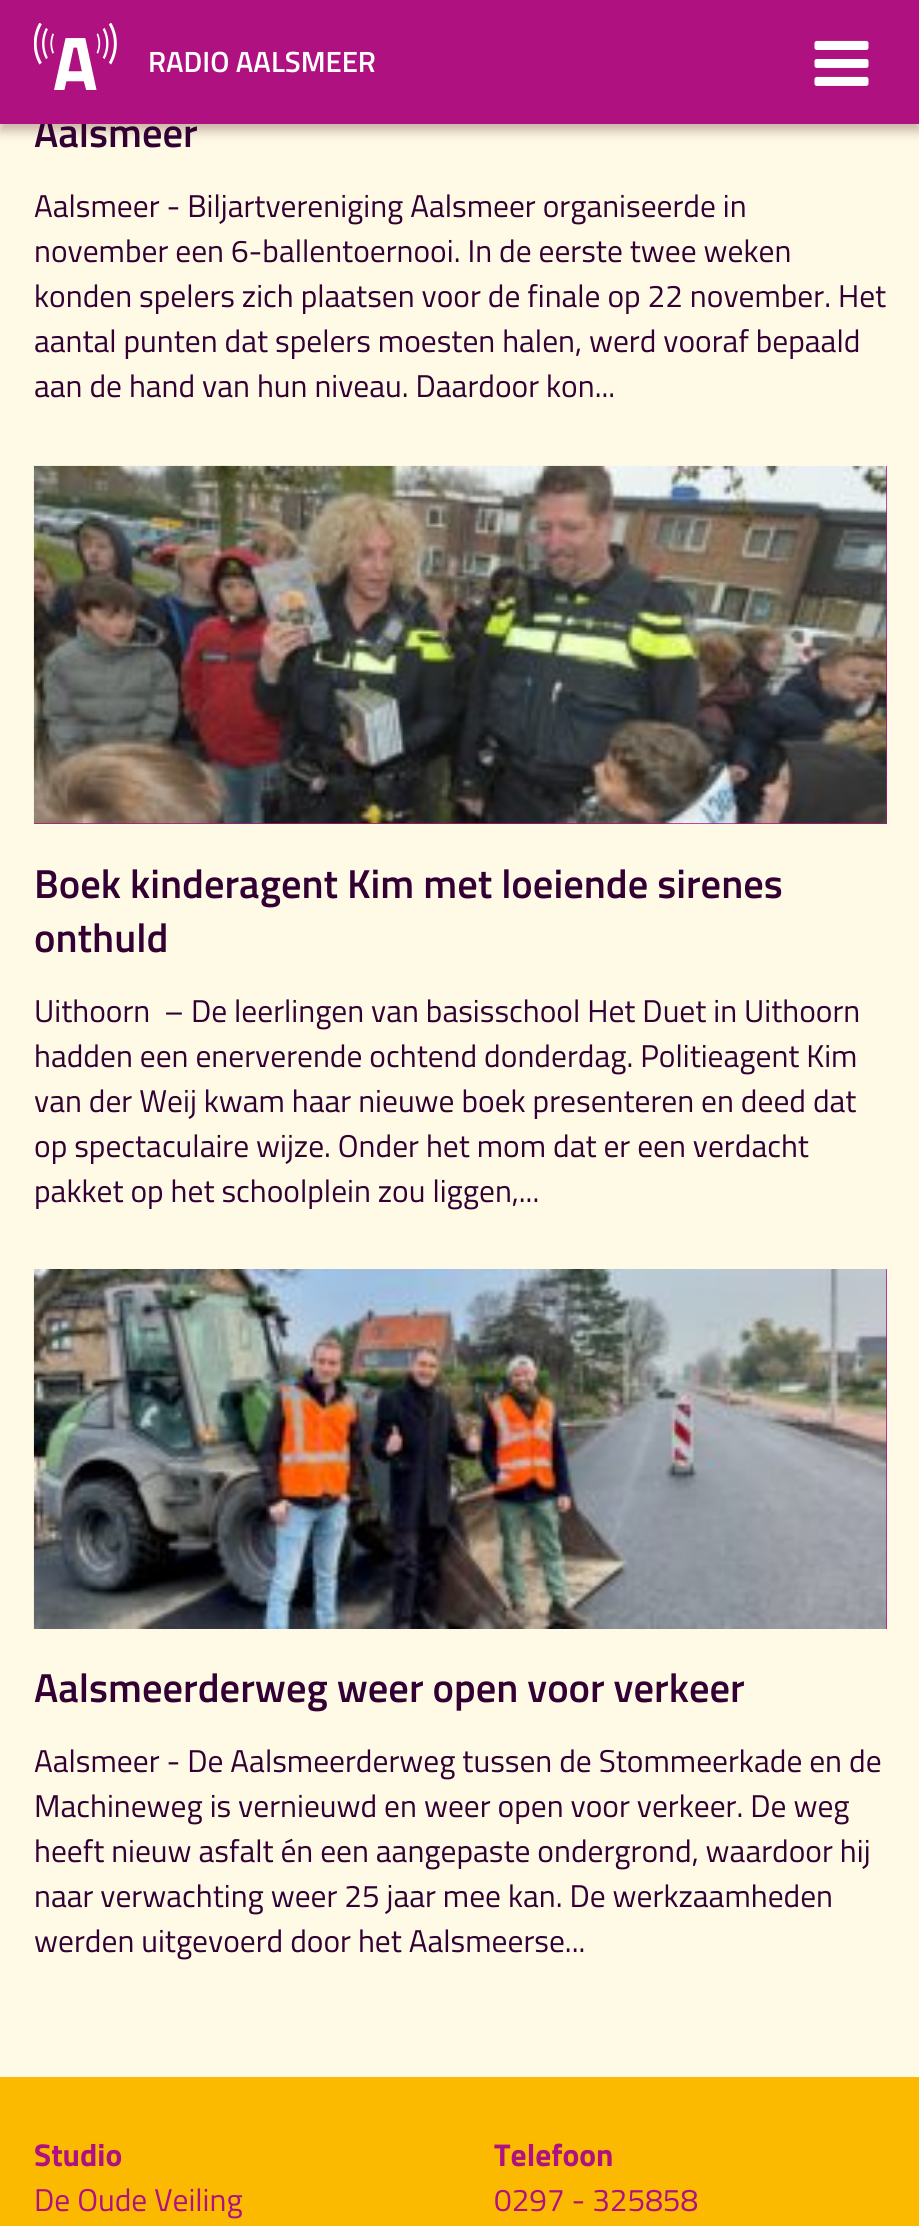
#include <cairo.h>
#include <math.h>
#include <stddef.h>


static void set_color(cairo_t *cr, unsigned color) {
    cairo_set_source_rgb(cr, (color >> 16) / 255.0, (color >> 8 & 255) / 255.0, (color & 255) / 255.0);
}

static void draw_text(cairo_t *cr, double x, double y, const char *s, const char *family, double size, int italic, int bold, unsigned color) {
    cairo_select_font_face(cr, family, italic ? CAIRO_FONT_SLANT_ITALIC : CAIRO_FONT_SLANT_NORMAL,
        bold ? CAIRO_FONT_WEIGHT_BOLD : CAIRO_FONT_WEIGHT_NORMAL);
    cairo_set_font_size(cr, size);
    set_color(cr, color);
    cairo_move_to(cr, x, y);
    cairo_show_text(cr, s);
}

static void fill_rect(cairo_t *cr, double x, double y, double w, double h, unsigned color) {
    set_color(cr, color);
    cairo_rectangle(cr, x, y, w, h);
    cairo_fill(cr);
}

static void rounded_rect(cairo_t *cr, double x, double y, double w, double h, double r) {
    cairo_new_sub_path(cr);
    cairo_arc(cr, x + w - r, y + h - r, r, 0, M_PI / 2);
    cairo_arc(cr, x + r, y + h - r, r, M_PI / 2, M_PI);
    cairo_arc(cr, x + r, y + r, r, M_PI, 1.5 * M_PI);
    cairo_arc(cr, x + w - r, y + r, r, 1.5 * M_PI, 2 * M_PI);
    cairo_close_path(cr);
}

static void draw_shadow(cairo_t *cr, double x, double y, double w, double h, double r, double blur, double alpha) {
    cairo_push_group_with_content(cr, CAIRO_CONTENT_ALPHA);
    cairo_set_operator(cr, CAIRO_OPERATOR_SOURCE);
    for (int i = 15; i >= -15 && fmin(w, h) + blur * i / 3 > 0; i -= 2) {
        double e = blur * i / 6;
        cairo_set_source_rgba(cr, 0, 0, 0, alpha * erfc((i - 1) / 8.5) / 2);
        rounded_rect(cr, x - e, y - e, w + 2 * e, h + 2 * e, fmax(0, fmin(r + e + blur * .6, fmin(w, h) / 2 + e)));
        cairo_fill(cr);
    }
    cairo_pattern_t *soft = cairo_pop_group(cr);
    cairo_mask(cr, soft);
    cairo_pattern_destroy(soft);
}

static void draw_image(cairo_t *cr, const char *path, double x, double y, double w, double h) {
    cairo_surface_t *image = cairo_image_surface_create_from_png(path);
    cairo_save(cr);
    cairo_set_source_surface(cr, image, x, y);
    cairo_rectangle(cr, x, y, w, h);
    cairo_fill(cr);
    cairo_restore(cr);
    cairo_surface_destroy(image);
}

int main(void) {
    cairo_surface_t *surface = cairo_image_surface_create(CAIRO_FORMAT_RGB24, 919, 2226);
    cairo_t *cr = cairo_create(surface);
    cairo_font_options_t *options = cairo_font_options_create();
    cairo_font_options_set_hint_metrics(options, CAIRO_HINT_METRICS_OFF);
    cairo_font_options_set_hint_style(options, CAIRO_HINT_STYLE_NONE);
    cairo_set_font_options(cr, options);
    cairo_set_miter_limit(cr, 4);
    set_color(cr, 0xFFFAE6);
    cairo_paint(cr);
    set_color(cr, 0x430B0A);
    draw_shadow(cr, 0, 7, 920, 124, 0, 5.5, 0.3);
    draw_text(cr, 34, 147, "Aalsmeer", "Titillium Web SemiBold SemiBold", 40.5, 0, 0, 0x330033);
    fill_rect(cr, 0, 0, 919, 124, 0xAF1280);
    draw_image(cr, "assets/img1.png", 34, 23, 83, 67);
    draw_text(cr, 148, 72, "RADIO AALSMEER", "Titillium Web SemiBold SemiBold", 29.25, 0, 0, 0xFFFFFF);
    draw_image(cr, "assets/img2.png", 814, 40, 55, 46);
    draw_text(cr, 34, 217, "Aalsmeer - Biljartvereniging Aalsmeer organiseerde in", "Titillium Web", 31.5, 0, 0, 0x330033);
    draw_text(cr, 34, 262, "november een 6-ballentoernooi. In de eerste twee weken", "Titillium Web", 31.5, 0, 0, 0x330033);
    draw_text(cr, 34, 307, "konden spelers zich plaatsen voor de finale op 22 november. Het", "Titillium Web", 31.5, 0, 0, 0x330033);
    draw_text(cr, 34, 352, "aantal punten dat spelers moesten halen, werd vooraf bepaald", "Titillium Web", 31.5, 0, 0, 0x330033);
    draw_text(cr, 34, 397, "aan de hand van hun niveau. Daardoor kon...", "Titillium Web", 31.5, 0, 0, 0x330033);
    fill_rect(cr, 34, 466, 853, 358, 0xAF1280);
    draw_image(cr, "assets/img3.png", 33, 465, 854, 359);
    draw_text(cr, 34, 898, "Boek kinderagent Kim met loeiende sirenes", "Titillium Web SemiBold SemiBold", 40.5, 0, 0, 0x330033);
    draw_text(cr, 34, 952, "onthuld", "Titillium Web SemiBold SemiBold", 40.5, 0, 0, 0x330033);
    draw_text(cr, 34, 1022, "Uithoorn  – De leerlingen van basisschool Het Duet in Uithoorn", "Titillium Web", 31.5, 0, 0, 0x330033);
    draw_text(cr, 34, 1067, "hadden een enerverende ochtend donderdag. Politieagent Kim", "Titillium Web", 31.5, 0, 0, 0x330033);
    draw_text(cr, 34, 1112, "van der Weij kwam haar nieuwe boek presenteren en deed dat", "Titillium Web", 31.5, 0, 0, 0x330033);
    draw_text(cr, 34, 1157, "op spectaculaire wijze. Onder het mom dat er een verdacht", "Titillium Web", 31.5, 0, 0, 0x330033);
    draw_text(cr, 34, 1202, "pakket op het schoolplein zou liggen,...", "Titillium Web", 31.5, 0, 0, 0x330033);
    fill_rect(cr, 886, 1269, 1, 360, 0xAF1280);
    draw_image(cr, "assets/img4.png", 33, 1269, 854, 360);
    draw_text(cr, 34, 1702, "Aalsmeerderweg weer open voor verkeer", "Titillium Web SemiBold SemiBold", 40.5, 0, 0, 0x330033);
    draw_text(cr, 34, 1772, "Aalsmeer - De Aalsmeerderweg tussen de Stommeerkade en de", "Titillium Web", 31.5, 0, 0, 0x330033);
    draw_text(cr, 34, 1817, "Machineweg is vernieuwd en weer open voor verkeer. De weg", "Titillium Web", 31.5, 0, 0, 0x330033);
    draw_text(cr, 34, 1862, "heeft nieuw asfalt én een aangepaste ondergrond, waardoor hij", "Titillium Web", 31.5, 0, 0, 0x330033);
    draw_text(cr, 34, 1907, "naar verwachting weer 25 jaar mee kan. De werkzaamheden", "Titillium Web", 31.5, 0, 0, 0x330033);
    draw_text(cr, 34, 1952, "werden uitgevoerd door het Aalsmeerse...", "Titillium Web", 31.5, 0, 0, 0x330033);
    fill_rect(cr, 0, 2077, 919, 149, 0xFBBA00);
    draw_text(cr, 34, 2166, "Studio", "Titillium Web", 31.5, 0, 1, 0xAF1280);
    draw_text(cr, 34, 2211, "De Oude Veiling", "Titillium Web", 31.5, 0, 0, 0xAF1280);
    draw_text(cr, 494, 2166, "Telefoon", "Titillium Web", 31.5, 0, 1, 0xAF1280);
    draw_text(cr, 494, 2211, "0297 - 325858", "Titillium Web", 31.5, 0, 0, 0xAF1280);
    cairo_surface_write_to_png(surface, "output.png");
    cairo_font_options_destroy(options);
    cairo_destroy(cr);
    cairo_surface_destroy(surface);
    return 0;
}
